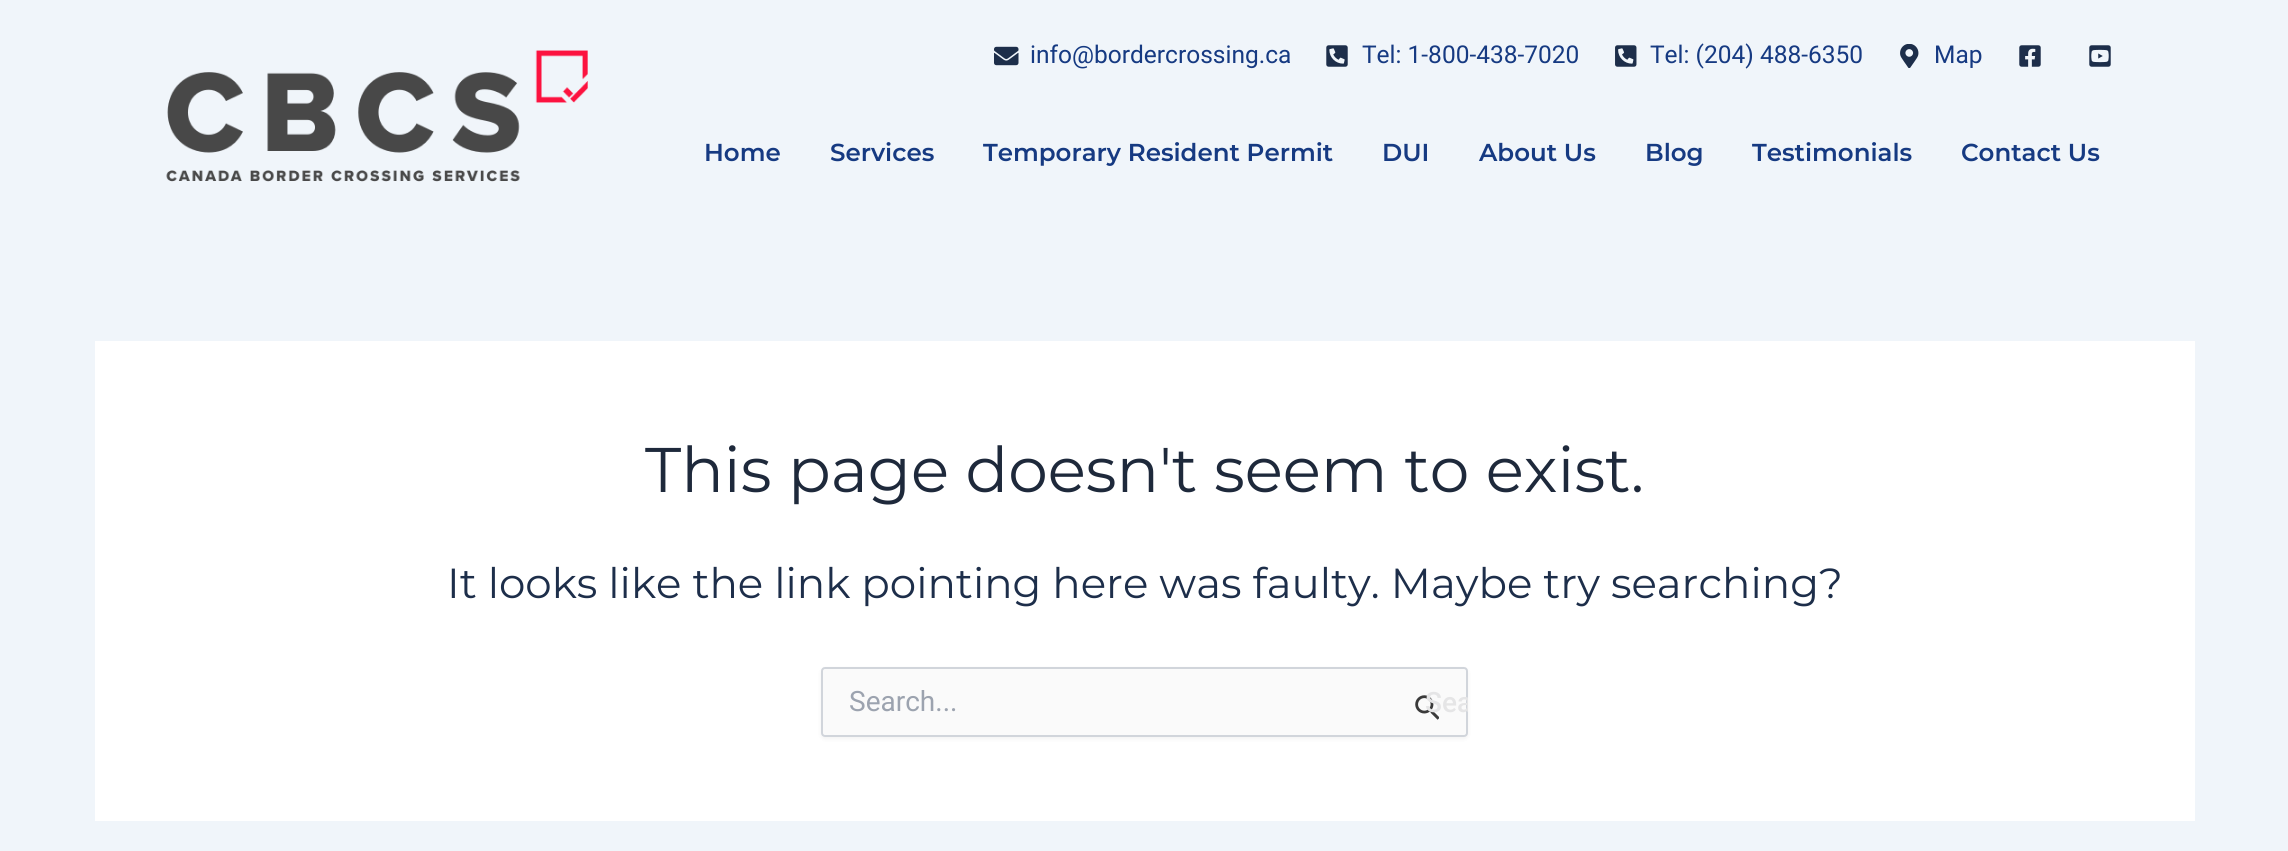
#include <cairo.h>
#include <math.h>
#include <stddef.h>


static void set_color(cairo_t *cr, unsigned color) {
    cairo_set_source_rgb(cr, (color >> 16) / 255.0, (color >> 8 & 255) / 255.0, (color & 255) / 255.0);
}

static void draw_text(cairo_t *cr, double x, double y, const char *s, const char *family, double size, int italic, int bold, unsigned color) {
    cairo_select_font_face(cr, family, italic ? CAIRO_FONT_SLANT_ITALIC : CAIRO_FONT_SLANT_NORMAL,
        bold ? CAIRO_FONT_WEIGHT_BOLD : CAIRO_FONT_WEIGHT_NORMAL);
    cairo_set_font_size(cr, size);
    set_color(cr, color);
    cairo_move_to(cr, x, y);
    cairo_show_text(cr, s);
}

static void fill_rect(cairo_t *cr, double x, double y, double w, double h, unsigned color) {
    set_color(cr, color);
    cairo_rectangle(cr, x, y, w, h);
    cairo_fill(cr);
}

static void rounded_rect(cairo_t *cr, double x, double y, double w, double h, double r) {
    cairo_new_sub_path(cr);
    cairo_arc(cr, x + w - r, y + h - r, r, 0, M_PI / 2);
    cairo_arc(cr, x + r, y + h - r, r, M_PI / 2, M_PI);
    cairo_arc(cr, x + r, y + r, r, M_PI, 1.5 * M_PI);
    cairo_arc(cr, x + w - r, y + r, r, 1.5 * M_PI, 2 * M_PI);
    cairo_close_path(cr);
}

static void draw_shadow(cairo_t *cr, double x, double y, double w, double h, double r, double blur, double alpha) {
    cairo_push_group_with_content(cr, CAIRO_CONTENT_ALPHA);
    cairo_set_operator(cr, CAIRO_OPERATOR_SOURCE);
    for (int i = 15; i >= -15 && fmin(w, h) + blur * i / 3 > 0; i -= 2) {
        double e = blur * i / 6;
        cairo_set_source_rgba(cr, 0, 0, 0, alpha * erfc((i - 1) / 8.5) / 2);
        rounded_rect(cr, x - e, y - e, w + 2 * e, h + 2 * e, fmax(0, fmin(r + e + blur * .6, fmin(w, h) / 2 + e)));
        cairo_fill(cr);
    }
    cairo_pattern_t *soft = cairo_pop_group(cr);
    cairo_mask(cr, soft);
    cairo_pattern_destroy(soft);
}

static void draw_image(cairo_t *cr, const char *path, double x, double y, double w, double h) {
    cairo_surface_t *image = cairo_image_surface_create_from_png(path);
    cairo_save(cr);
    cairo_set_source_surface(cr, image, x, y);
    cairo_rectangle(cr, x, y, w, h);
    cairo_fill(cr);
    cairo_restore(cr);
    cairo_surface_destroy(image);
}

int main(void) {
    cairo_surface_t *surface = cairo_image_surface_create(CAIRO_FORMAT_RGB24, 2288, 851);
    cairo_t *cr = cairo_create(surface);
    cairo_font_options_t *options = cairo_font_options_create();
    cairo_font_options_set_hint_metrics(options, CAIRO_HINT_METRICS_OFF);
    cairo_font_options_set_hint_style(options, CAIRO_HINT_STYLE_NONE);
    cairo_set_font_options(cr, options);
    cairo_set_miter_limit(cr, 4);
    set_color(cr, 0xF0F5FA);
    cairo_paint(cr);
    draw_image(cr, "assets/img1.png", 166, 50, 422, 132);
    draw_image(cr, "assets/img2.png", 994, 46, 25, 20);
    draw_text(cr, 1030, 63, "info@bordercrossing.ca", "Roboto", 24.5, 0, 0, 0x163A82);
    draw_image(cr, "assets/img3.png", 1326, 45, 22, 22);
    draw_text(cr, 1362, 63, "Tel: 1-800-438-7020", "Roboto", 24.5, 0, 0, 0x163A82);
    draw_image(cr, "assets/img4.png", 1615, 45, 22, 22);
    draw_text(cr, 1650, 63, "Tel: (204) 488-6350", "Roboto", 24.5, 0, 0, 0x163A82);
    draw_image(cr, "assets/img5.png", 1900, 44, 19, 24);
    draw_text(cr, 1934, 63, "Map", "Roboto", 24.5, 0, 0, 0x163A82);
    draw_image(cr, "assets/img6.png", 2019, 45, 22, 22);
    draw_image(cr, "assets/img7.png", 2089, 45, 22, 22);
    draw_text(cr, 704, 161, "Home", "Montserrat Thin", 24.5, 0, 0, 0x163A82);
    draw_text(cr, 830, 161, "Services", "Montserrat Thin", 24.5, 0, 0, 0x163A82);
    draw_text(cr, 983, 161, "Temporary Resident Permit", "Montserrat Thin", 24.5, 0, 0, 0x163A82);
    draw_text(cr, 1382, 161, "DUI", "Montserrat Thin", 24.5, 0, 0, 0x163A82);
    draw_text(cr, 1479, 161, "About Us", "Montserrat Thin", 24.5, 0, 0, 0x163A82);
    draw_text(cr, 1645, 161, "Blog", "Montserrat Thin", 24.5, 0, 0, 0x163A82);
    draw_text(cr, 1752, 161, "Testimonials", "Montserrat Thin", 24.5, 0, 0, 0x163A82);
    draw_text(cr, 1961, 161, "Contact Us", "Montserrat Thin", 24.5, 0, 0, 0x163A82);
    fill_rect(cr, 95, 341, 2100, 480, 0xFFFFFF);
    draw_text(cr, 645, 492, "This page doesn't seem to exist.", "Montserrat", 63, 0, 0, 0x1E293B);
    draw_text(cr, 447, 598, "It looks like the link pointing here was faulty. Maybe try searching?", "Montserrat", 42, 0, 0, 0x1D2E4A);
    set_color(cr, 0x000000);
    draw_shadow(cr, 821, 669, 647, 70, 4, 2, 0.05);
    set_color(cr, 0xFAFAFA);
    rounded_rect(cr, 822, 668, 645, 68, 3);
    cairo_fill_preserve(cr);
    set_color(cr, 0xD1D5DB);
    cairo_stroke(cr);
    draw_text(cr, 849, 711, "Search...", "Roboto", 28, 0, 0, 0x9CA3AF);
    draw_image(cr, "assets/img8.png", 1415, 695, 24, 25);
    cairo_save(cr);
    rounded_rect(cr, 1390, 667, 78, 73, 4);
    cairo_clip(cr);
    draw_text(cr, 1425, 712, "Sea", "Roboto Medium", 28, 0, 0, 0xE5E5E6);
    cairo_restore(cr);
    cairo_surface_write_to_png(surface, "output.png");
    cairo_font_options_destroy(options);
    cairo_destroy(cr);
    cairo_surface_destroy(surface);
    return 0;
}
